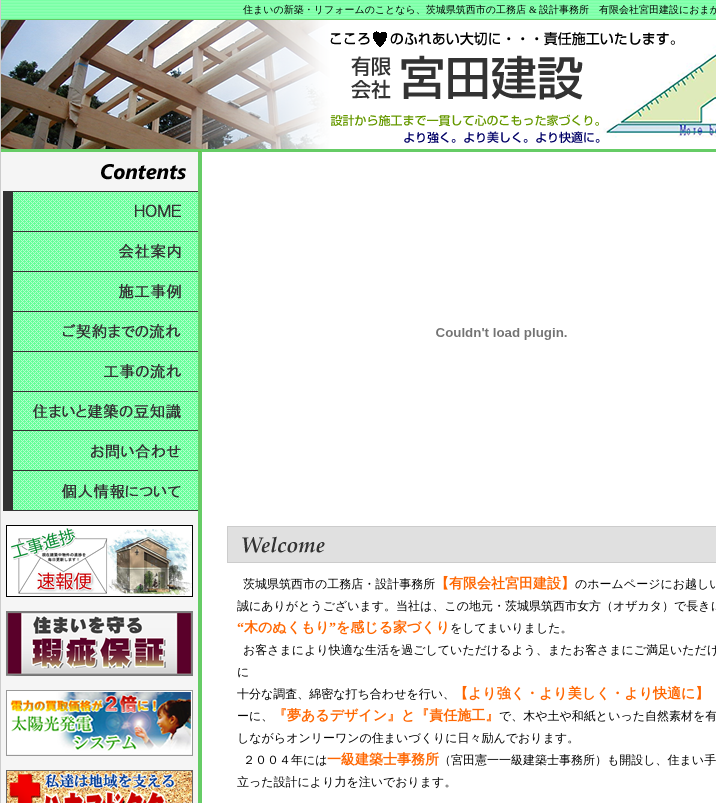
#include <cairo.h>
#include <math.h>
#include <stddef.h>


static void set_color(cairo_t *cr, unsigned color) {
    cairo_set_source_rgb(cr, (color >> 16) / 255.0, (color >> 8 & 255) / 255.0, (color & 255) / 255.0);
}

static void draw_text(cairo_t *cr, double x, double y, const char *s, const char *family, double size, int italic, int bold, unsigned color) {
    cairo_select_font_face(cr, family, italic ? CAIRO_FONT_SLANT_ITALIC : CAIRO_FONT_SLANT_NORMAL,
        bold ? CAIRO_FONT_WEIGHT_BOLD : CAIRO_FONT_WEIGHT_NORMAL);
    cairo_set_font_size(cr, size);
    set_color(cr, color);
    cairo_move_to(cr, x, y);
    cairo_show_text(cr, s);
}

static void fill_rect(cairo_t *cr, double x, double y, double w, double h, unsigned color) {
    set_color(cr, color);
    cairo_rectangle(cr, x, y, w, h);
    cairo_fill(cr);
}

static void draw_image(cairo_t *cr, const char *path, double x, double y, double w, double h) {
    cairo_surface_t *image = cairo_image_surface_create_from_png(path);
    cairo_save(cr);
    cairo_set_source_surface(cr, image, x, y);
    cairo_rectangle(cr, x, y, w, h);
    cairo_fill(cr);
    cairo_restore(cr);
    cairo_surface_destroy(image);
}

int main(void) {
    cairo_surface_t *surface = cairo_image_surface_create(CAIRO_FORMAT_RGB24, 716, 803);
    cairo_t *cr = cairo_create(surface);
    cairo_font_options_t *options = cairo_font_options_create();
    cairo_font_options_set_hint_metrics(options, CAIRO_HINT_METRICS_OFF);
    cairo_font_options_set_hint_style(options, CAIRO_HINT_STYLE_NONE);
    cairo_set_font_options(cr, options);
    cairo_set_miter_limit(cr, 4);
    set_color(cr, 0xFFFFFF);
    cairo_paint(cr);
    fill_rect(cr, 0, 0, 1, 803, 0xCCCCCC);
    draw_image(cr, "assets/img1.png", 1, 0, 715, 152);
    draw_text(cr, 243, 13, "住まいの新築・リフォームのことなら、茨城県筑西市の工務店", "WenQuanYi Zen Hei Medium", 10, 0, 0, 0x000000);
    draw_text(cr, 529, 13, "&", "Liberation Serif", 10, 0, 0, 0x000000);
    draw_text(cr, 539, 13, "設計事務所　有限会社宮田建設におまか", "WenQuanYi Zen Hei Medium", 10, 0, 0, 0x000000);
    fill_rect(cr, 1, 152, 197, 651, 0xF5F5F5);
    draw_image(cr, "assets/img2.png", 101, 164, 85, 16);
    draw_image(cr, "assets/img3.png", 3, 191, 195, 41);
    draw_image(cr, "assets/img4.png", 3, 232, 195, 40);
    draw_image(cr, "assets/img5.png", 3, 272, 195, 40);
    draw_image(cr, "assets/img6.png", 3, 312, 195, 40);
    draw_image(cr, "assets/img7.png", 3, 352, 195, 40);
    draw_image(cr, "assets/img8.png", 3, 392, 195, 39);
    draw_image(cr, "assets/img9.png", 3, 431, 195, 40);
    draw_image(cr, "assets/img10.png", 3, 471, 195, 40);
    draw_image(cr, "assets/img11.png", 6, 525, 187, 72);
    draw_image(cr, "assets/img12.png", 6, 611, 187, 65);
    draw_image(cr, "assets/img13.png", 6, 690, 187, 66);
    draw_image(cr, "assets/img14.png", 6, 770, 187, 33);
    fill_rect(cr, 198, 152, 4, 651, 0x66CC66);
    draw_image(cr, "assets/img15.png", 436, 328, 131, 12);
    draw_image(cr, "assets/img16.png", 227, 526, 489, 37);
    draw_text(cr, 243, 588, "茨城県筑西市の工務店・設計事務所", "WenQuanYi Zen Hei Medium", 12, 0, 0, 0x000000);
    draw_text(cr, 435, 588, "【有限会社宮田建設】", "WenQuanYi Zen Hei", 14, 0, 1, 0xFF6600);
    draw_text(cr, 575, 588, "のホームページにお越しい", "WenQuanYi Zen Hei Medium", 12, 0, 0, 0x000000);
    draw_text(cr, 237, 610, "誠にありがとうございます。当社は、この地元・茨城県筑西市女方（オザカタ）で長きに", "WenQuanYi Zen Hei Medium", 12, 0, 0, 0x000000);
    draw_text(cr, 237, 632, "“", "Liberation Serif", 14, 0, 1, 0xFF6600);
    draw_text(cr, 244, 632, "木のぬくもり", "WenQuanYi Zen Hei", 14, 0, 1, 0xFF6600);
    draw_text(cr, 329, 632, "”", "Liberation Serif", 14, 0, 1, 0xFF6600);
    draw_text(cr, 336, 632, "を感じる家づくり", "WenQuanYi Zen Hei", 14, 0, 1, 0xFF6600);
    draw_text(cr, 450, 632, "をしてまいりました。", "WenQuanYi Zen Hei Medium", 12, 0, 0, 0x000000);
    draw_text(cr, 243, 654, "お客さまにより快適な生活を過ごしていただけるよう、またお客さまにご満足いただけ", "WenQuanYi Zen Hei Medium", 12, 0, 0, 0x000000);
    draw_text(cr, 237, 676, "に", "WenQuanYi Zen Hei Medium", 12, 0, 0, 0x000000);
    draw_text(cr, 237, 698, "十分な調査、綿密な打ち合わせを行い、", "WenQuanYi Zen Hei Medium", 12, 0, 0, 0x000000);
    draw_text(cr, 454, 698, "【より強く・より美しく・より快適に】", "WenQuanYi Zen Hei", 14, 0, 1, 0xFF6600);
    draw_text(cr, 237, 720, "ーに、", "WenQuanYi Zen Hei Medium", 12, 0, 0, 0x000000);
    draw_text(cr, 273, 720, "『夢あるデザイン』と『責任施工』", "WenQuanYi Zen Hei", 14, 0, 1, 0xFF6600);
    draw_text(cr, 499, 720, "で、木や土や和紙といった自然素材を有", "WenQuanYi Zen Hei Medium", 12, 0, 0, 0x000000);
    draw_text(cr, 237, 742, "しながらオンリーワンの住まいづくりに日々励んでおります。", "WenQuanYi Zen Hei Medium", 12, 0, 0, 0x000000);
    draw_text(cr, 243, 764, "２００４年には", "WenQuanYi Zen Hei Medium", 12, 0, 0, 0x000000);
    draw_text(cr, 327, 764, "一級建築士事務所", "WenQuanYi Zen Hei", 14, 0, 1, 0xFF6600);
    draw_text(cr, 439, 764, "（宮田憲一一級建築士事務所）も開設し、住まい手", "WenQuanYi Zen Hei Medium", 12, 0, 0, 0x000000);
    draw_text(cr, 237, 786, "立った設計により力を注いでおります。", "WenQuanYi Zen Hei Medium", 12, 0, 0, 0x000000);
    cairo_surface_write_to_png(surface, "output.png");
    cairo_font_options_destroy(options);
    cairo_destroy(cr);
    cairo_surface_destroy(surface);
    return 0;
}
